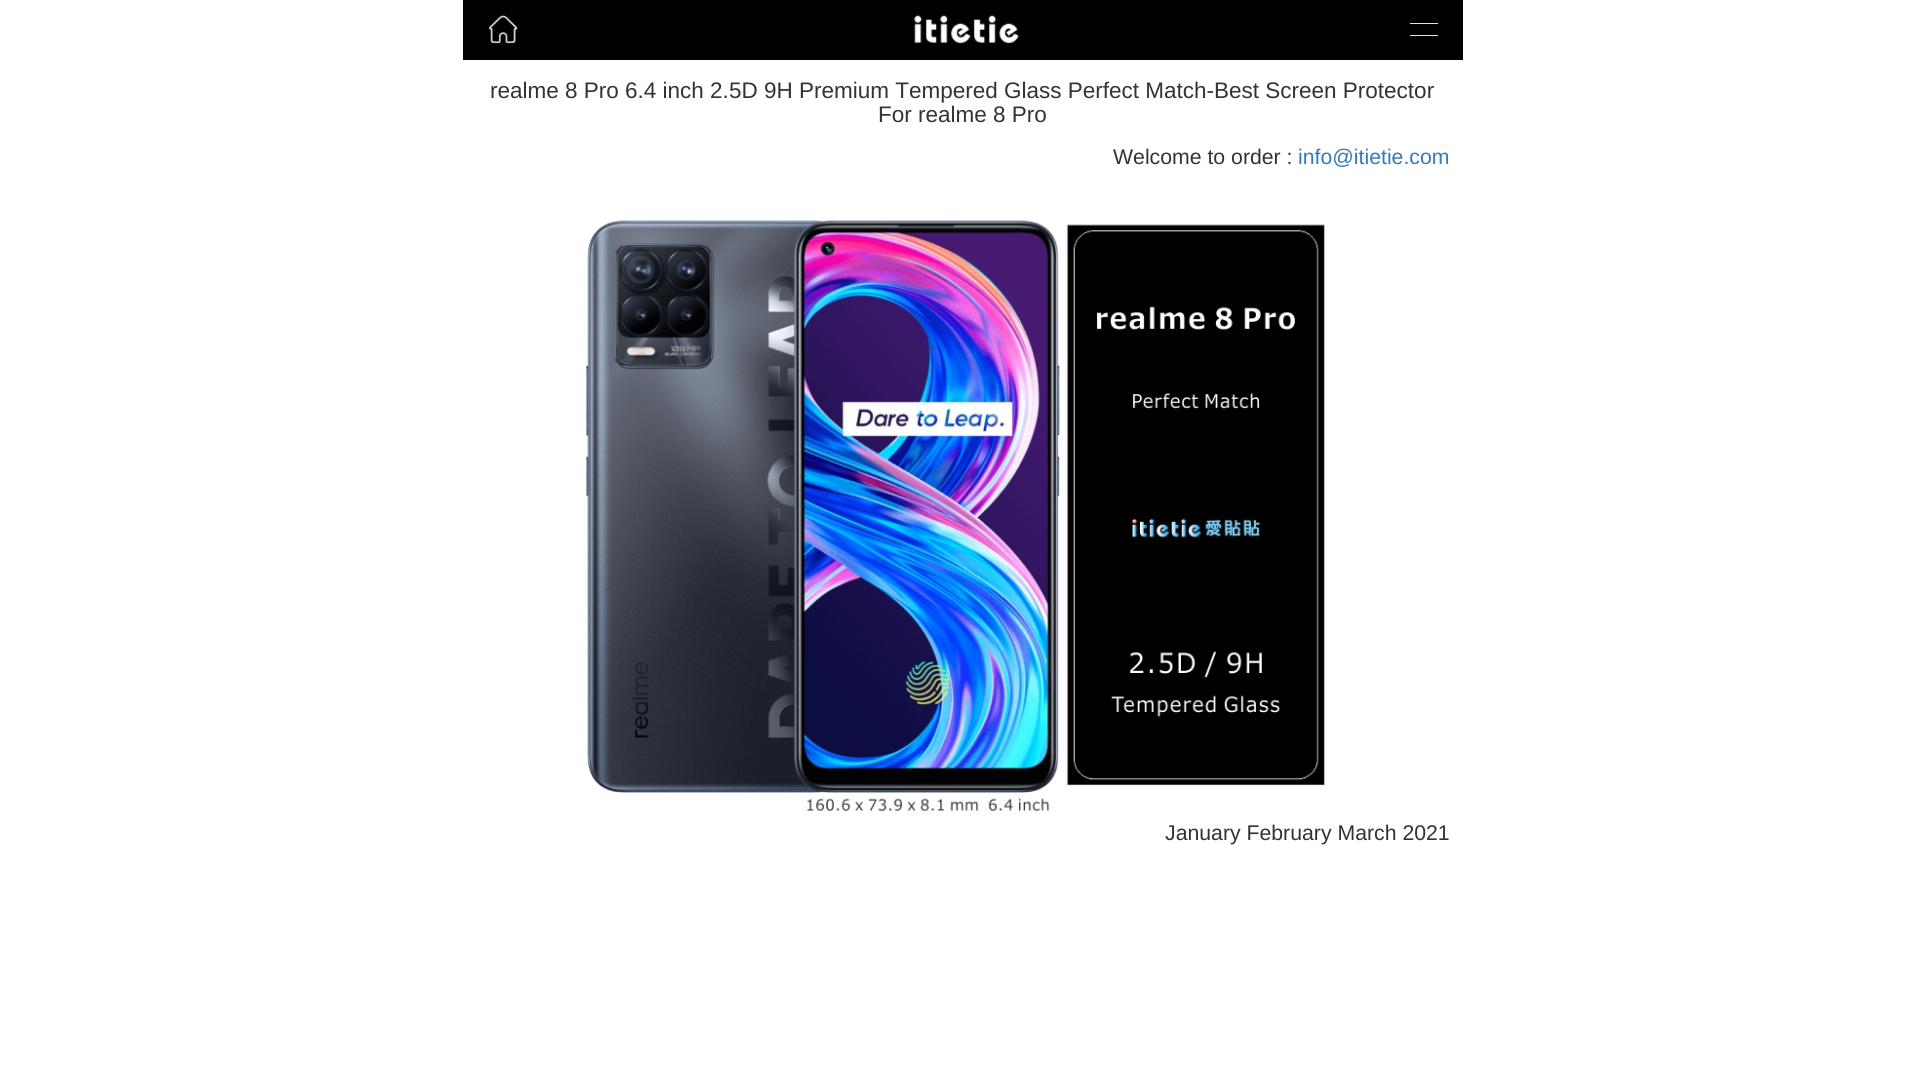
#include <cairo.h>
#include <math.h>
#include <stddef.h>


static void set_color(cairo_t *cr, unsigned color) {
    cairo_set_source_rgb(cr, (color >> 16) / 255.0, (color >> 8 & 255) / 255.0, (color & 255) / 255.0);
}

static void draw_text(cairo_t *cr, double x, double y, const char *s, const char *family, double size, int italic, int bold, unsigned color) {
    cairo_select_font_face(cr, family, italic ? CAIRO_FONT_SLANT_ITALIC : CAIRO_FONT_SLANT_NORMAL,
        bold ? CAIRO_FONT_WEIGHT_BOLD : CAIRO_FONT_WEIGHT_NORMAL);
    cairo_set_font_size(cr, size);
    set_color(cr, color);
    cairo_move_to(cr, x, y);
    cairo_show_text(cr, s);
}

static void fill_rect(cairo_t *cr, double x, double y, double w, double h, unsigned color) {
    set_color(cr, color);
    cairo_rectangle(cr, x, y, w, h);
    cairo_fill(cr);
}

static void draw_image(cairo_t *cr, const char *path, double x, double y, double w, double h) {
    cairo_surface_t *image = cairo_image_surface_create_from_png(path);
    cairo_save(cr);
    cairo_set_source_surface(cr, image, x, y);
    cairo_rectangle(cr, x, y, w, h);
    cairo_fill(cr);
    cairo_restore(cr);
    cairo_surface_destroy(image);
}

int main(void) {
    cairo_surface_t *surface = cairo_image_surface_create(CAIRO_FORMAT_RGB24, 1925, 1070);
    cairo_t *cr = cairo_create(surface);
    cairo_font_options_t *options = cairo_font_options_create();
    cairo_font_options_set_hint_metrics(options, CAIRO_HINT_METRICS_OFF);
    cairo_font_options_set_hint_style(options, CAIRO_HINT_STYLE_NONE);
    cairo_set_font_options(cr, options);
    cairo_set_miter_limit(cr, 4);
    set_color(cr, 0xFFFFFF);
    cairo_paint(cr);
    fill_rect(cr, 463, 0, 1000, 60, 0x000000);
    draw_image(cr, "assets/img1.png", 489, 15, 29, 29);
    draw_image(cr, "assets/img2.png", 914, 15, 105, 29);
    fill_rect(cr, 1410, 23, 28, 1, 0xE0E0E0);
    fill_rect(cr, 1410, 35, 28, 1, 0xE0E0E0);
    draw_text(cr, 490, 98, "realme 8 Pro 6.4 inch 2.5D 9H Premium Tempered Glass Perfect Match-Best Screen Protector", "Liberation Sans", 22.5, 0, 0, 0x333333);
    draw_text(cr, 878, 122, "For realme 8 Pro", "Liberation Sans", 22.5, 0, 0, 0x333333);
    draw_text(cr, 1113, 164, "Welcome to order :", "Liberation Sans", 21.25, 0, 0, 0x333333);
    draw_text(cr, 1298, 164, "info@itietie.com", "Liberation Sans", 21.25, 0, 0, 0x337AB7);
    draw_image(cr, "assets/img3.png", 586, 220, 740, 592);
    draw_text(cr, 1165, 840, "January February March 2021", "Liberation Sans", 21.25, 0, 0, 0x333333);
    cairo_surface_write_to_png(surface, "output.png");
    cairo_font_options_destroy(options);
    cairo_destroy(cr);
    cairo_surface_destroy(surface);
    return 0;
}
